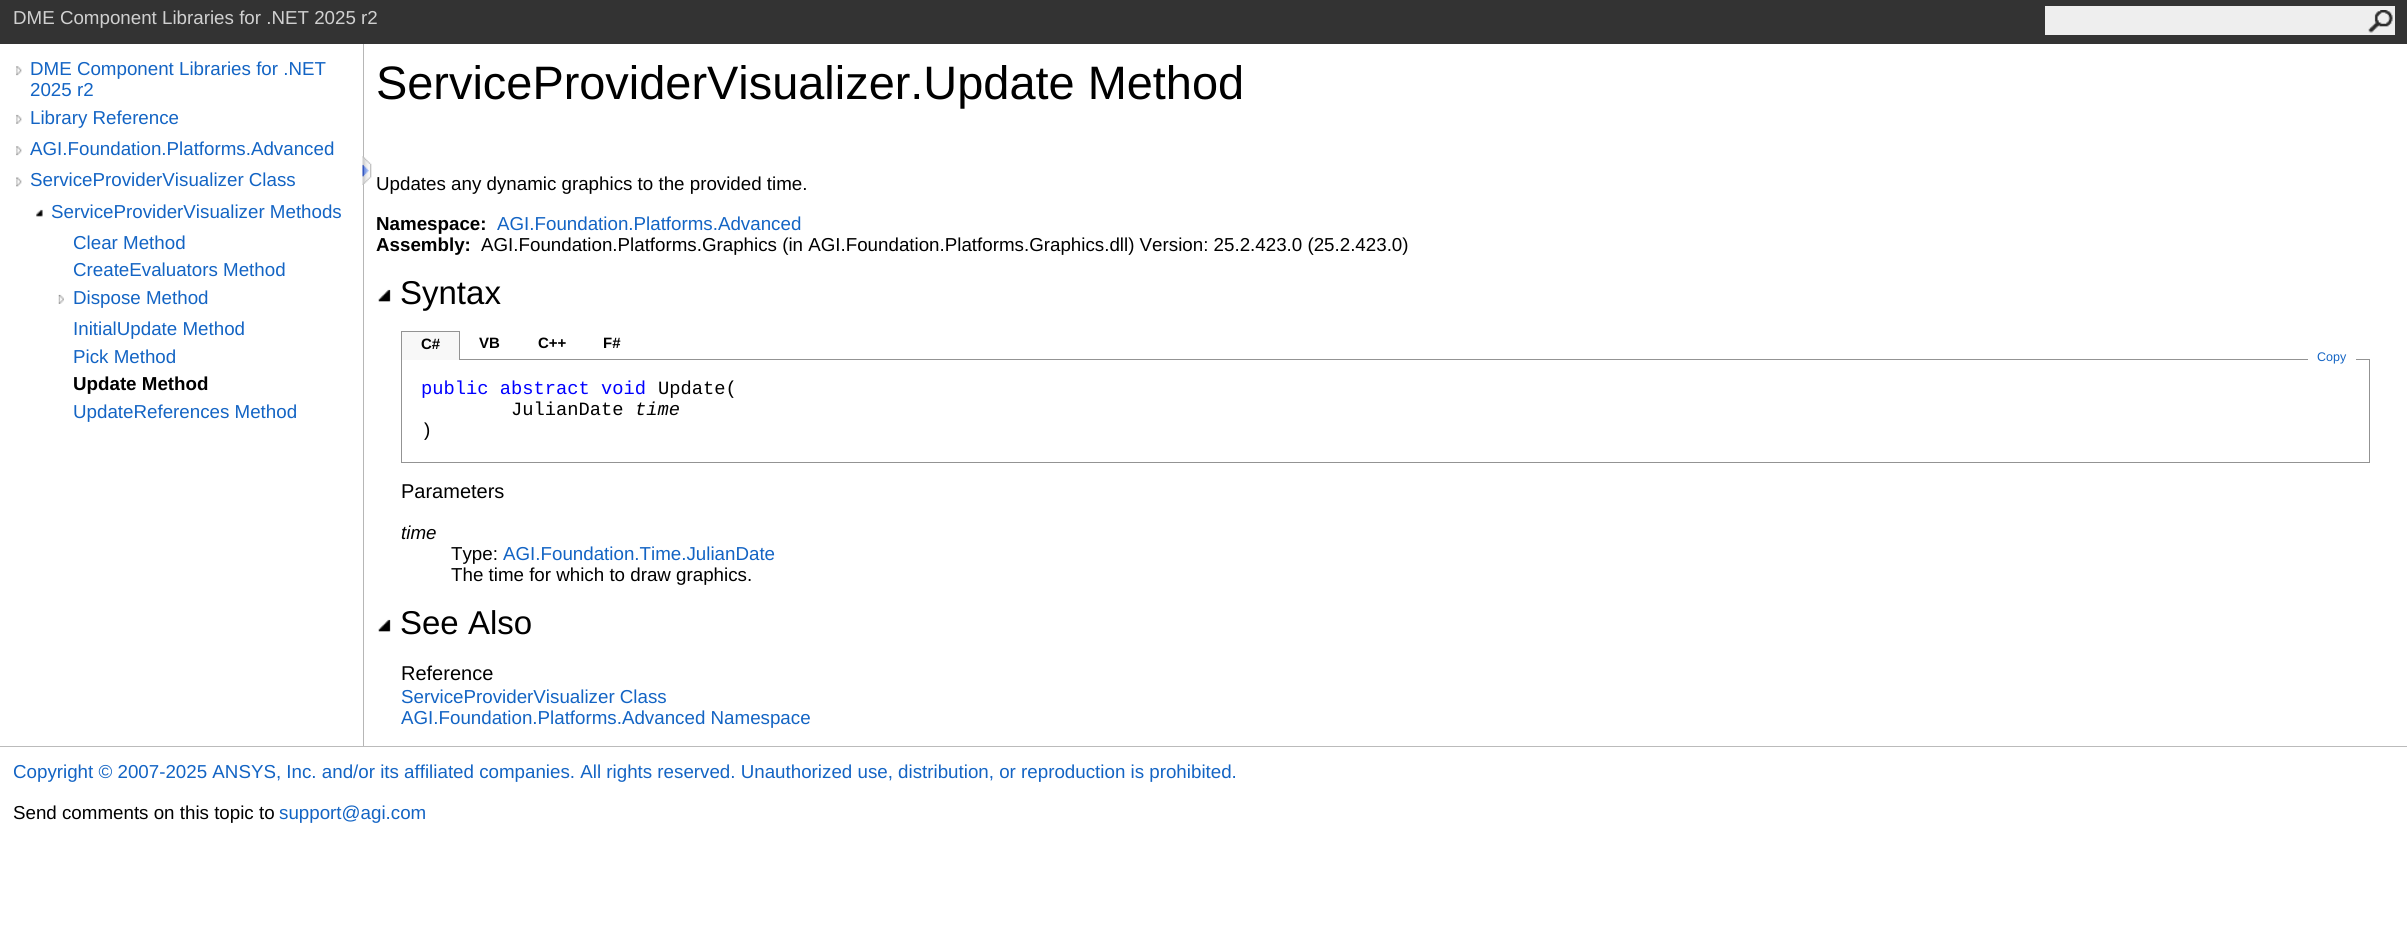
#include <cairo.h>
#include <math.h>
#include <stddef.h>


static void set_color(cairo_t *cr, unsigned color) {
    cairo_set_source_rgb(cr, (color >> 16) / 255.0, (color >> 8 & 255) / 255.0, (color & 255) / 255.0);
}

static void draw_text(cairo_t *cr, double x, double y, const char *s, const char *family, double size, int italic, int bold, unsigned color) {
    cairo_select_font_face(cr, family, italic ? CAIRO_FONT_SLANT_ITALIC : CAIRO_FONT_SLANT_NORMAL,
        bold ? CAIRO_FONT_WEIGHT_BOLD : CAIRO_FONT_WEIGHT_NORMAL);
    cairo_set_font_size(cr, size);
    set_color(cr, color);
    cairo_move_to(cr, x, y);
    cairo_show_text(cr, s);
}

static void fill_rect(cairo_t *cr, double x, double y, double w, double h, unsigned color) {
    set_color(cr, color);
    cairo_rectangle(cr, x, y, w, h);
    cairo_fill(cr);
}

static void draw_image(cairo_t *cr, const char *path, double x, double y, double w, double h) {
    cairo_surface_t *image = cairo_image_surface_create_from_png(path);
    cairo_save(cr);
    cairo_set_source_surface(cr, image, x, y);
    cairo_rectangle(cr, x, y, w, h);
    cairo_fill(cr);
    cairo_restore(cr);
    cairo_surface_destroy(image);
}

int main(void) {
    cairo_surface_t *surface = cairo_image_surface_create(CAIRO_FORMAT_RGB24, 2407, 931);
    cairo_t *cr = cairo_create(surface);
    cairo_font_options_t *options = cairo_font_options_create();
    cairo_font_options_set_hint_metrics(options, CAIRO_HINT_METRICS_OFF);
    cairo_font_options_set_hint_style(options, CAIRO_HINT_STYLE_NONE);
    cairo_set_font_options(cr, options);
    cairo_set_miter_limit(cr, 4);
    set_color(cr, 0xFFFFFF);
    cairo_paint(cr);
    fill_rect(cr, 0, 0, 2407, 44, 0x333333);
    draw_text(cr, 13, 24, "DME Component Libraries for .NET 2025 r2", "Liberation Sans", 18.75, 0, 0, 0xD0D0D0);
    fill_rect(cr, 2045, 6, 350, 29, 0xEEEEEE);
    draw_image(cr, "assets/img1.png", 2368, 10, 25, 23);
    fill_rect(cr, 363, 44, 1, 702, 0xB6B6B6);
    draw_image(cr, "assets/img2.png", 16, 66, 6, 10);
    draw_text(cr, 30, 75, "DME Component Libraries for .NET", "Liberation Sans", 18.75, 0, 0, 0x1364C4);
    draw_text(cr, 30, 96, "2025 r2", "Liberation Sans", 18.75, 0, 0, 0x1364C4);
    draw_image(cr, "assets/img3.png", 16, 114, 6, 10);
    draw_text(cr, 30, 124, "Library Reference", "Liberation Sans", 18.75, 0, 0, 0x1364C4);
    draw_image(cr, "assets/img2.png", 16, 146, 6, 10);
    draw_text(cr, 30, 155, "AGI.Foundation.Platforms.Advanced", "Liberation Sans", 18.75, 0, 0, 0x1364C4);
    draw_image(cr, "assets/img4.png", 16, 177, 6, 10);
    draw_text(cr, 30, 186, "ServiceProviderVisualizer Class", "Liberation Sans", 18.75, 0, 0, 0x1364C4);
    draw_image(cr, "assets/img5.png", 36, 209, 7, 8);
    draw_text(cr, 51, 218, "ServiceProviderVisualizer Methods", "Liberation Sans", 18.75, 0, 0, 0x1364C4);
    draw_text(cr, 73, 249, "Clear Method", "Liberation Sans", 18.75, 0, 0, 0x1364C4);
    draw_text(cr, 73, 276, "CreateEvaluators Method", "Liberation Sans", 18.75, 0, 0, 0x1364C4);
    draw_image(cr, "assets/img6.png", 58, 294, 6, 10);
    draw_text(cr, 73, 304, "Dispose Method", "Liberation Sans", 18.75, 0, 0, 0x1364C4);
    draw_text(cr, 73, 335, "InitialUpdate Method", "Liberation Sans", 18.75, 0, 0, 0x1364C4);
    draw_text(cr, 73, 363, "Pick Method", "Liberation Sans", 18.75, 0, 0, 0x1364C4);
    draw_text(cr, 73, 390, "Update Method", "Liberation Sans", 18.75, 0, 1, 0x000000);
    draw_text(cr, 73, 418, "UpdateReferences Method", "Liberation Sans", 18.75, 0, 0, 0x1364C4);
    draw_image(cr, "assets/img7.png", 362, 156, 10, 29);
    draw_text(cr, 376, 99, "ServiceProviderVisualizer.Update Method", "Liberation Sans", 46.9, 0, 0, 0x000000);
    draw_text(cr, 376, 190, "Updates any dynamic graphics to the provided time.", "Liberation Sans", 18.75, 0, 0, 0x000000);
    draw_text(cr, 376, 230, "Namespace:", "Liberation Sans", 18.75, 0, 1, 0x000000);
    draw_text(cr, 497, 230, "AGI.Foundation.Platforms.Advanced", "Liberation Sans", 18.75, 0, 0, 0x1364C4);
    draw_text(cr, 376, 251, "Assembly:", "Liberation Sans", 18.75, 0, 1, 0x000000);
    draw_text(cr, 481, 251, "AGI.Foundation.Platforms.Graphics (in AGI.Foundation.Platforms.Graphics.dll) Version: 25.2.423.0 (25.2.423.0)", "Liberation Sans", 18.75, 0, 0, 0x000000);
    draw_image(cr, "assets/img8.png", 378, 289, 13, 13);
    draw_text(cr, 400, 304, "Syntax", "Liberation Sans", 33, 0, 0, 0x000000);
    cairo_rectangle(cr, 401.5, 359.5, 1968, 103);
    set_color(cr, 0x939393);
    cairo_set_line_width(cr, 1);
    cairo_stroke(cr);
    fill_rect(cr, 402, 332, 57, 28, 0xF8F8F8);
    fill_rect(cr, 401, 331, 59, 1, 0x939393);
    fill_rect(cr, 459, 331, 1, 29, 0x939393);
    fill_rect(cr, 401, 331, 1, 29, 0x939393);
    draw_text(cr, 421, 349, "C#", "Liberation Sans", 15, 0, 1, 0x000000);
    draw_text(cr, 479, 348, "VB", "Liberation Sans", 15, 0, 1, 0x000000);
    draw_text(cr, 538, 348, "C++", "Liberation Sans", 15, 0, 1, 0x000000);
    draw_text(cr, 603, 348, "F#", "Liberation Sans", 15, 0, 1, 0x000000);
    fill_rect(cr, 2308, 359, 48, 1, 0xFFFFFF);
    draw_text(cr, 2317, 361, "Copy", "Liberation Sans", 12.5, 0, 0, 0x1364C4);
    draw_text(cr, 421, 394, "public abstract void", "Liberation Mono", 18.75, 0, 0, 0x0000FF);
    draw_text(cr, 658, 394, "Update(", "Liberation Mono", 18.75, 0, 0, 0x000000);
    draw_text(cr, 511, 415, "JulianDate", "Liberation Mono", 18.75, 0, 0, 0x000000);
    draw_text(cr, 635, 415, "time", "Liberation Mono", 18.75, 1, 0, 0x000000);
    draw_text(cr, 421, 436, ")", "Liberation Mono", 18.75, 0, 0, 0x000000);
    draw_text(cr, 401, 498, "Parameters", "Liberation Sans", 20, 0, 0, 0x000000);
    draw_text(cr, 401, 539, "time", "Liberation Sans", 18.75, 1, 0, 0x000000);
    draw_text(cr, 451, 560, "Type:", "Liberation Sans", 18.75, 0, 0, 0x000000);
    draw_text(cr, 503, 560, "AGI.Foundation.Time.JulianDate", "Liberation Sans", 18.75, 0, 0, 0x1364C4);
    draw_text(cr, 451, 581, "The time for which to draw graphics.", "Liberation Sans", 18.75, 0, 0, 0x000000);
    draw_image(cr, "assets/img9.png", 378, 619, 13, 13);
    draw_text(cr, 400, 634, "See Also", "Liberation Sans", 33, 0, 0, 0x000000);
    draw_text(cr, 401, 680, "Reference", "Liberation Sans", 20, 0, 0, 0x000000);
    draw_text(cr, 401, 703, "ServiceProviderVisualizer Class", "Liberation Sans", 18.75, 0, 0, 0x1364C4);
    draw_text(cr, 401, 724, "AGI.Foundation.Platforms.Advanced Namespace", "Liberation Sans", 18.75, 0, 0, 0x1364C4);
    fill_rect(cr, 0, 746, 2407, 1, 0xBBBBBB);
    draw_text(cr, 13, 778, "Copyright © 2007-2025 ANSYS, Inc. and/or its affiliated companies. All rights reserved. Unauthorized use, distribution, or reproduction is prohibited.", "Liberation Sans", 18.75, 0, 0, 0x1364C4);
    draw_text(cr, 13, 819, "Send comments on this topic to", "Liberation Sans", 18.75, 0, 0, 0x000000);
    draw_text(cr, 279, 819, "support@agi.com", "Liberation Sans", 18.75, 0, 0, 0x1364C4);
    cairo_surface_write_to_png(surface, "output.png");
    cairo_font_options_destroy(options);
    cairo_destroy(cr);
    cairo_surface_destroy(surface);
    return 0;
}
